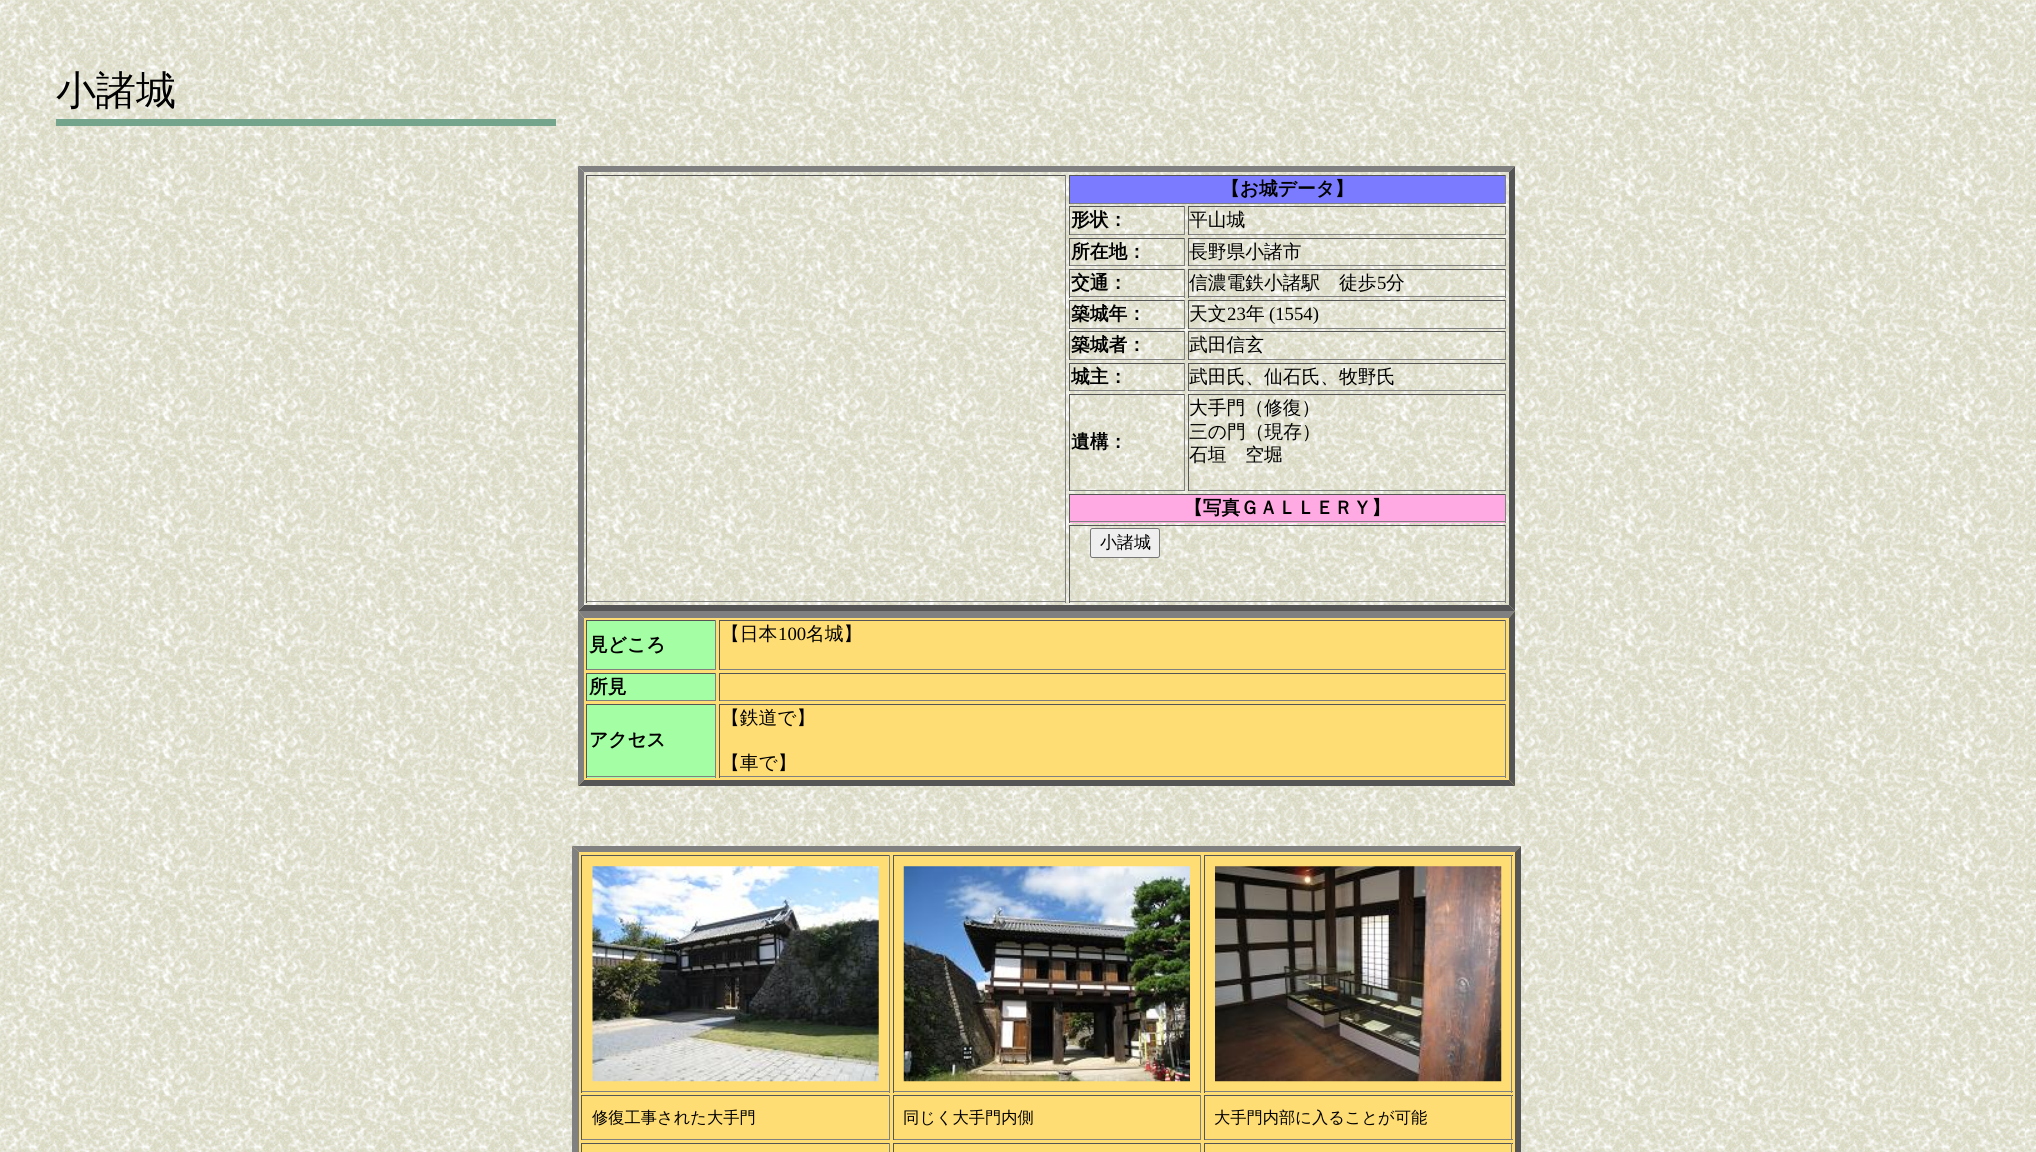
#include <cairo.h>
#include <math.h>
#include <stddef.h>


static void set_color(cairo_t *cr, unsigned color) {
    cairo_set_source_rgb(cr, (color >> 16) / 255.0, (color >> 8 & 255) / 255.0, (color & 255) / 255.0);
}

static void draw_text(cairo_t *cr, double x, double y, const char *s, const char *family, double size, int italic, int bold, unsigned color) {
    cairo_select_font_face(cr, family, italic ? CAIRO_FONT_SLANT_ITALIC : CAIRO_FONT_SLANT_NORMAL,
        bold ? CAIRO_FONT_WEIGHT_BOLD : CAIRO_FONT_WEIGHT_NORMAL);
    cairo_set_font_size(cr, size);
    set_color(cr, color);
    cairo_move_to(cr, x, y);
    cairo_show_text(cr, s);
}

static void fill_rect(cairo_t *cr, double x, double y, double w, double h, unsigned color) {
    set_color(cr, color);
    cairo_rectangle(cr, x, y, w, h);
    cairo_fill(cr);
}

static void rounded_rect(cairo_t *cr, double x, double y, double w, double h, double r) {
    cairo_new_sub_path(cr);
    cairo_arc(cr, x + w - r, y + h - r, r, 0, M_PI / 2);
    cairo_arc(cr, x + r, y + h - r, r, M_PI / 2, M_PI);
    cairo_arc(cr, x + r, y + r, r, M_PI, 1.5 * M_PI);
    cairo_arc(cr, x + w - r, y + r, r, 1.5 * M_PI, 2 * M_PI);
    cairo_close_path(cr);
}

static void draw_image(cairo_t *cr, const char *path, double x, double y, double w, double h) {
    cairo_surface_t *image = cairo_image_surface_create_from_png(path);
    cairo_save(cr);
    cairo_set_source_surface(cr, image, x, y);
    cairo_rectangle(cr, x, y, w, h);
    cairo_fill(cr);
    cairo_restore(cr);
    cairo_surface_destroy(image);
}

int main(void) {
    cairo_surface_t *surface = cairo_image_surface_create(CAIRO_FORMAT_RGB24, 2036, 1152);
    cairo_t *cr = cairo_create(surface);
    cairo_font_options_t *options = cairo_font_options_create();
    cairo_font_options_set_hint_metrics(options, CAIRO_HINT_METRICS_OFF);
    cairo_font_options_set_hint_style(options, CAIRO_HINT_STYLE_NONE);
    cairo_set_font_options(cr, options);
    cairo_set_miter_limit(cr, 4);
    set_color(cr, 0xFFFFFF);
    cairo_paint(cr);
    draw_image(cr, "assets/img1.png", 0, 0, 2036, 1152);
    draw_text(cr, 56, 104, "小諸城", "WenQuanYi Zen Hei Medium", 40, 0, 0, 0x000000);
    fill_rect(cr, 56, 119, 500, 7, 0x75A48D);
    set_color(cr, 0x808080);
    cairo_new_path(cr);
    cairo_move_to(cr, 578, 166);
    cairo_line_to(cr, 1515, 166);
    cairo_line_to(cr, 1509, 172);
    cairo_line_to(cr, 584, 172);
    cairo_close_path(cr);
    cairo_fill(cr);
    set_color(cr, 0x555555);
    cairo_new_path(cr);
    cairo_move_to(cr, 1515, 166);
    cairo_line_to(cr, 1515, 611);
    cairo_line_to(cr, 1509, 605);
    cairo_line_to(cr, 1509, 172);
    cairo_close_path(cr);
    cairo_fill(cr);
    cairo_new_path(cr);
    cairo_move_to(cr, 1515, 611);
    cairo_line_to(cr, 578, 611);
    cairo_line_to(cr, 584, 605);
    cairo_line_to(cr, 1509, 605);
    cairo_close_path(cr);
    cairo_fill(cr);
    set_color(cr, 0x808080);
    cairo_new_path(cr);
    cairo_move_to(cr, 578, 611);
    cairo_line_to(cr, 578, 166);
    cairo_line_to(cr, 584, 172);
    cairo_line_to(cr, 584, 605);
    cairo_close_path(cr);
    cairo_fill(cr);
    fill_rect(cr, 586, 175, 480, 1, 0x555555);
    fill_rect(cr, 1065, 175, 1, 428, 0x808080);
    fill_rect(cr, 586, 601, 480, 1, 0x808080);
    fill_rect(cr, 586, 175, 1, 428, 0x555555);
    fill_rect(cr, 1070, 176, 435, 27, 0x7B7BFF);
    fill_rect(cr, 1069, 175, 437, 1, 0x555555);
    fill_rect(cr, 1505, 175, 1, 29, 0x808080);
    fill_rect(cr, 1069, 203, 437, 1, 0x808080);
    fill_rect(cr, 1069, 175, 1, 29, 0x555555);
    draw_text(cr, 1221, 195, "【お城データ】", "WenQuanYi Zen Hei", 18.75, 0, 1, 0x000000);
    fill_rect(cr, 1069, 206, 116, 1, 0x555555);
    fill_rect(cr, 1184, 206, 1, 29, 0x808080);
    fill_rect(cr, 1069, 234, 116, 1, 0x808080);
    fill_rect(cr, 1069, 206, 1, 29, 0x555555);
    draw_text(cr, 1071, 226, "形状：", "WenQuanYi Zen Hei", 18.75, 0, 1, 0x000000);
    fill_rect(cr, 1188, 206, 318, 1, 0x555555);
    fill_rect(cr, 1505, 206, 1, 29, 0x808080);
    fill_rect(cr, 1188, 234, 318, 1, 0x808080);
    fill_rect(cr, 1188, 206, 1, 29, 0x555555);
    draw_text(cr, 1189, 226, "平山城", "WenQuanYi Zen Hei Medium", 18.75, 0, 0, 0x000000);
    fill_rect(cr, 1069, 238, 116, 1, 0x555555);
    fill_rect(cr, 1184, 238, 1, 28, 0x808080);
    fill_rect(cr, 1069, 265, 116, 1, 0x808080);
    fill_rect(cr, 1069, 238, 1, 28, 0x555555);
    draw_text(cr, 1071, 258, "所在地：", "WenQuanYi Zen Hei", 18.75, 0, 1, 0x000000);
    fill_rect(cr, 1188, 238, 318, 1, 0x555555);
    fill_rect(cr, 1505, 238, 1, 28, 0x808080);
    fill_rect(cr, 1188, 265, 318, 1, 0x808080);
    fill_rect(cr, 1188, 238, 1, 28, 0x555555);
    draw_text(cr, 1189, 258, "長野県小諸市", "WenQuanYi Zen Hei Medium", 18.75, 0, 0, 0x000000);
    fill_rect(cr, 1069, 269, 116, 1, 0x555555);
    fill_rect(cr, 1184, 269, 1, 29, 0x808080);
    fill_rect(cr, 1069, 296, 116, 1, 0x808080);
    fill_rect(cr, 1069, 269, 1, 29, 0x555555);
    draw_text(cr, 1071, 289, "交通：", "WenQuanYi Zen Hei", 18.75, 0, 1, 0x000000);
    fill_rect(cr, 1188, 269, 318, 1, 0x555555);
    fill_rect(cr, 1505, 269, 1, 29, 0x808080);
    fill_rect(cr, 1188, 296, 318, 1, 0x808080);
    fill_rect(cr, 1188, 269, 1, 29, 0x555555);
    draw_text(cr, 1189, 289, "信濃電鉄小諸駅　徒歩", "WenQuanYi Zen Hei Medium", 18.75, 0, 0, 0x000000);
    draw_text(cr, 1377, 289, "5", "Liberation Serif", 18.75, 0, 0, 0x000000);
    draw_text(cr, 1386, 289, "分", "WenQuanYi Zen Hei Medium", 18.75, 0, 0, 0x000000);
    fill_rect(cr, 1069, 300, 116, 1, 0x555555);
    fill_rect(cr, 1184, 300, 1, 29, 0x808080);
    fill_rect(cr, 1069, 328, 116, 1, 0x808080);
    fill_rect(cr, 1069, 300, 1, 29, 0x555555);
    draw_text(cr, 1071, 320, "築城年：", "WenQuanYi Zen Hei", 18.75, 0, 1, 0x000000);
    fill_rect(cr, 1188, 300, 318, 1, 0x555555);
    fill_rect(cr, 1505, 300, 1, 29, 0x808080);
    fill_rect(cr, 1188, 328, 318, 1, 0x808080);
    fill_rect(cr, 1188, 300, 1, 29, 0x555555);
    draw_text(cr, 1189, 320, "天文", "WenQuanYi Zen Hei Medium", 18.75, 0, 0, 0x000000);
    draw_text(cr, 1227, 320, "23", "Liberation Serif", 18.75, 0, 0, 0x000000);
    draw_text(cr, 1246, 320, "年", "WenQuanYi Zen Hei Medium", 18.75, 0, 0, 0x000000);
    draw_text(cr, 1269, 320, "(1554)", "Liberation Serif", 18.75, 0, 0, 0x000000);
    fill_rect(cr, 1069, 331, 116, 1, 0x555555);
    fill_rect(cr, 1184, 331, 1, 29, 0x808080);
    fill_rect(cr, 1069, 359, 116, 1, 0x808080);
    fill_rect(cr, 1069, 331, 1, 29, 0x555555);
    draw_text(cr, 1071, 351, "築城者：", "WenQuanYi Zen Hei", 18.75, 0, 1, 0x000000);
    fill_rect(cr, 1188, 331, 318, 1, 0x555555);
    fill_rect(cr, 1505, 331, 1, 29, 0x808080);
    fill_rect(cr, 1188, 359, 318, 1, 0x808080);
    fill_rect(cr, 1188, 331, 1, 29, 0x555555);
    draw_text(cr, 1189, 351, "武田信玄", "WenQuanYi Zen Hei Medium", 18.75, 0, 0, 0x000000);
    fill_rect(cr, 1069, 363, 116, 1, 0x555555);
    fill_rect(cr, 1184, 363, 1, 28, 0x808080);
    fill_rect(cr, 1069, 390, 116, 1, 0x808080);
    fill_rect(cr, 1069, 363, 1, 28, 0x555555);
    draw_text(cr, 1071, 383, "城主：", "WenQuanYi Zen Hei", 18.75, 0, 1, 0x000000);
    fill_rect(cr, 1188, 363, 318, 1, 0x555555);
    fill_rect(cr, 1505, 363, 1, 28, 0x808080);
    fill_rect(cr, 1188, 390, 318, 1, 0x808080);
    fill_rect(cr, 1188, 363, 1, 28, 0x555555);
    draw_text(cr, 1189, 383, "武田氏、仙石氏、牧野氏", "WenQuanYi Zen Hei Medium", 18.75, 0, 0, 0x000000);
    fill_rect(cr, 1069, 394, 116, 1, 0x555555);
    fill_rect(cr, 1184, 394, 1, 97, 0x808080);
    fill_rect(cr, 1069, 490, 116, 1, 0x808080);
    fill_rect(cr, 1069, 394, 1, 97, 0x555555);
    draw_text(cr, 1071, 448, "遺構：", "WenQuanYi Zen Hei", 18.75, 0, 1, 0x000000);
    fill_rect(cr, 1188, 394, 318, 1, 0x555555);
    fill_rect(cr, 1505, 394, 1, 97, 0x808080);
    fill_rect(cr, 1188, 490, 318, 1, 0x808080);
    fill_rect(cr, 1188, 394, 1, 97, 0x555555);
    draw_text(cr, 1189, 414, "大手門（修復）", "WenQuanYi Zen Hei Medium", 18.75, 0, 0, 0x000000);
    draw_text(cr, 1189, 438, "三の門（現存）", "WenQuanYi Zen Hei Medium", 18.75, 0, 0, 0x000000);
    draw_text(cr, 1189, 461, "石垣　空堀", "WenQuanYi Zen Hei Medium", 18.75, 0, 0, 0x000000);
    fill_rect(cr, 1070, 495, 435, 28, 0xFFAAE2);
    fill_rect(cr, 1069, 494, 437, 1, 0x555555);
    fill_rect(cr, 1505, 494, 1, 29, 0x808080);
    fill_rect(cr, 1069, 521, 437, 1, 0x808080);
    fill_rect(cr, 1069, 494, 1, 29, 0x555555);
    draw_text(cr, 1184, 514, "【写真ＧＡＬＬＥＲＹ】", "WenQuanYi Zen Hei", 18.75, 0, 1, 0x000000);
    fill_rect(cr, 1069, 525, 437, 1, 0x555555);
    fill_rect(cr, 1505, 525, 1, 78, 0x808080);
    fill_rect(cr, 1069, 601, 437, 1, 0x808080);
    fill_rect(cr, 1069, 525, 1, 78, 0x555555);
    set_color(cr, 0xEFEFEF);
    rounded_rect(cr, 1090.5, 528.5, 69, 29, 2);
    cairo_fill_preserve(cr);
    set_color(cr, 0x767676);
    cairo_set_line_width(cr, 1);
    cairo_stroke(cr);
    draw_text(cr, 1100, 548, "小諸城", "WenQuanYi Zen Hei Medium", 17, 0, 0, 0x000000);
    fill_rect(cr, 578, 611, 937, 175, 0xFFDD75);
    set_color(cr, 0x808080);
    cairo_new_path(cr);
    cairo_move_to(cr, 578, 611);
    cairo_line_to(cr, 1515, 611);
    cairo_line_to(cr, 1509, 618);
    cairo_line_to(cr, 584, 618);
    cairo_close_path(cr);
    cairo_fill(cr);
    set_color(cr, 0x555555);
    cairo_new_path(cr);
    cairo_move_to(cr, 1515, 611);
    cairo_line_to(cr, 1515, 786);
    cairo_line_to(cr, 1509, 780);
    cairo_line_to(cr, 1509, 618);
    cairo_close_path(cr);
    cairo_fill(cr);
    cairo_new_path(cr);
    cairo_move_to(cr, 1515, 786);
    cairo_line_to(cr, 578, 786);
    cairo_line_to(cr, 584, 780);
    cairo_line_to(cr, 1509, 780);
    cairo_close_path(cr);
    cairo_fill(cr);
    set_color(cr, 0x808080);
    cairo_new_path(cr);
    cairo_move_to(cr, 578, 786);
    cairo_line_to(cr, 578, 611);
    cairo_line_to(cr, 584, 618);
    cairo_line_to(cr, 584, 780);
    cairo_close_path(cr);
    cairo_fill(cr);
    fill_rect(cr, 719, 620, 787, 1, 0x555555);
    fill_rect(cr, 1505, 620, 1, 50, 0x808080);
    fill_rect(cr, 719, 669, 787, 1, 0x808080);
    fill_rect(cr, 719, 620, 1, 50, 0x555555);
    draw_text(cr, 721, 640, "【日本", "WenQuanYi Zen Hei Medium", 18.75, 0, 0, 0x000000);
    draw_text(cr, 778, 640, "100", "Liberation Serif", 18.75, 0, 0, 0x000000);
    draw_text(cr, 806, 640, "名城】", "WenQuanYi Zen Hei Medium", 18.75, 0, 0, 0x000000);
    fill_rect(cr, 587, 621, 128, 48, 0xA4FFA4);
    fill_rect(cr, 586, 620, 130, 1, 0x555555);
    fill_rect(cr, 715, 620, 1, 50, 0x808080);
    fill_rect(cr, 586, 669, 130, 1, 0x808080);
    fill_rect(cr, 586, 620, 1, 50, 0x555555);
    draw_text(cr, 589, 651, "見どころ", "WenQuanYi Zen Hei", 18.75, 0, 1, 0x000000);
    fill_rect(cr, 587, 674, 128, 26, 0xA4FFA4);
    fill_rect(cr, 586, 673, 130, 1, 0x555555);
    fill_rect(cr, 715, 673, 1, 28, 0x808080);
    fill_rect(cr, 586, 700, 130, 1, 0x808080);
    fill_rect(cr, 586, 673, 1, 28, 0x555555);
    draw_text(cr, 589, 693, "所見", "WenQuanYi Zen Hei", 18.75, 0, 1, 0x000000);
    fill_rect(cr, 719, 673, 787, 1, 0x555555);
    fill_rect(cr, 1505, 673, 1, 28, 0x808080);
    fill_rect(cr, 719, 700, 787, 1, 0x808080);
    fill_rect(cr, 719, 673, 1, 28, 0x555555);
    fill_rect(cr, 587, 705, 128, 73, 0xA4FFA4);
    fill_rect(cr, 586, 704, 130, 1, 0x555555);
    fill_rect(cr, 715, 704, 1, 74, 0x808080);
    fill_rect(cr, 586, 776, 130, 1, 0x808080);
    fill_rect(cr, 586, 704, 1, 74, 0x555555);
    draw_text(cr, 589, 746, "アクセス", "WenQuanYi Zen Hei", 18.75, 0, 1, 0x000000);
    fill_rect(cr, 719, 704, 787, 1, 0x555555);
    fill_rect(cr, 1505, 704, 1, 74, 0x808080);
    fill_rect(cr, 719, 776, 787, 1, 0x808080);
    fill_rect(cr, 719, 704, 1, 74, 0x555555);
    draw_text(cr, 721, 724, "【鉄道で】", "WenQuanYi Zen Hei Medium", 18.75, 0, 0, 0x000000);
    draw_text(cr, 721, 769, "【車で】", "WenQuanYi Zen Hei Medium", 18.75, 0, 0, 0x000000);
    fill_rect(cr, 573, 846, 948, 306, 0xFFDD75);
    set_color(cr, 0x808080);
    cairo_new_path(cr);
    cairo_move_to(cr, 572, 846);
    cairo_line_to(cr, 1521, 846);
    cairo_line_to(cr, 1515, 852);
    cairo_line_to(cr, 579, 852);
    cairo_close_path(cr);
    cairo_fill(cr);
    set_color(cr, 0x555555);
    cairo_new_path(cr);
    cairo_move_to(cr, 1521, 846);
    cairo_line_to(cr, 1521, 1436);
    cairo_line_to(cr, 1515, 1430);
    cairo_line_to(cr, 1515, 852);
    cairo_close_path(cr);
    cairo_fill(cr);
    set_color(cr, 0x808080);
    cairo_new_path(cr);
    cairo_move_to(cr, 572, 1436);
    cairo_line_to(cr, 572, 846);
    cairo_line_to(cr, 579, 852);
    cairo_line_to(cr, 579, 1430);
    cairo_close_path(cr);
    cairo_fill(cr);
    fill_rect(cr, 581, 855, 309, 1, 0x555555);
    fill_rect(cr, 889, 855, 1, 238, 0x808080);
    fill_rect(cr, 581, 1091, 309, 1, 0x808080);
    fill_rect(cr, 581, 855, 1, 238, 0x555555);
    draw_image(cr, "assets/img2.png", 592, 866, 287, 216);
    fill_rect(cr, 893, 855, 308, 1, 0x555555);
    fill_rect(cr, 1200, 855, 1, 238, 0x808080);
    fill_rect(cr, 893, 1091, 308, 1, 0x808080);
    fill_rect(cr, 893, 855, 1, 238, 0x555555);
    draw_image(cr, "assets/img3.png", 903, 866, 287, 216);
    fill_rect(cr, 1204, 855, 309, 1, 0x555555);
    fill_rect(cr, 1511, 855, 1, 238, 0x808080);
    fill_rect(cr, 1204, 1091, 309, 1, 0x808080);
    fill_rect(cr, 1204, 855, 1, 238, 0x555555);
    draw_image(cr, "assets/img4.png", 1215, 866, 287, 216);
    fill_rect(cr, 581, 1095, 309, 1, 0x555555);
    fill_rect(cr, 889, 1095, 1, 45, 0x808080);
    fill_rect(cr, 581, 1139, 309, 1, 0x808080);
    fill_rect(cr, 581, 1095, 1, 45, 0x555555);
    draw_text(cr, 592, 1123, "修復工事された大手門", "WenQuanYi Zen Hei Medium", 16.25, 0, 0, 0x000000);
    fill_rect(cr, 893, 1095, 308, 1, 0x555555);
    fill_rect(cr, 1200, 1095, 1, 45, 0x808080);
    fill_rect(cr, 893, 1139, 308, 1, 0x808080);
    fill_rect(cr, 893, 1095, 1, 45, 0x555555);
    draw_text(cr, 903, 1123, "同じく大手門内側", "WenQuanYi Zen Hei Medium", 16.25, 0, 0, 0x000000);
    fill_rect(cr, 1204, 1095, 309, 1, 0x555555);
    fill_rect(cr, 1511, 1095, 1, 45, 0x808080);
    fill_rect(cr, 1204, 1139, 309, 1, 0x808080);
    fill_rect(cr, 1204, 1095, 1, 45, 0x555555);
    draw_text(cr, 1214, 1123, "大手門内部に入ることが可能", "WenQuanYi Zen Hei Medium", 16.25, 0, 0, 0x000000);
    fill_rect(cr, 581, 1143, 309, 1, 0x555555);
    fill_rect(cr, 889, 1143, 1, 9, 0x808080);
    fill_rect(cr, 581, 1143, 1, 9, 0x555555);
    fill_rect(cr, 893, 1143, 308, 1, 0x555555);
    fill_rect(cr, 1200, 1143, 1, 9, 0x808080);
    fill_rect(cr, 893, 1143, 1, 9, 0x555555);
    fill_rect(cr, 1204, 1143, 309, 1, 0x555555);
    fill_rect(cr, 1511, 1143, 1, 9, 0x808080);
    fill_rect(cr, 1204, 1143, 1, 9, 0x555555);
    cairo_surface_write_to_png(surface, "output.png");
    cairo_font_options_destroy(options);
    cairo_destroy(cr);
    cairo_surface_destroy(surface);
    return 0;
}
